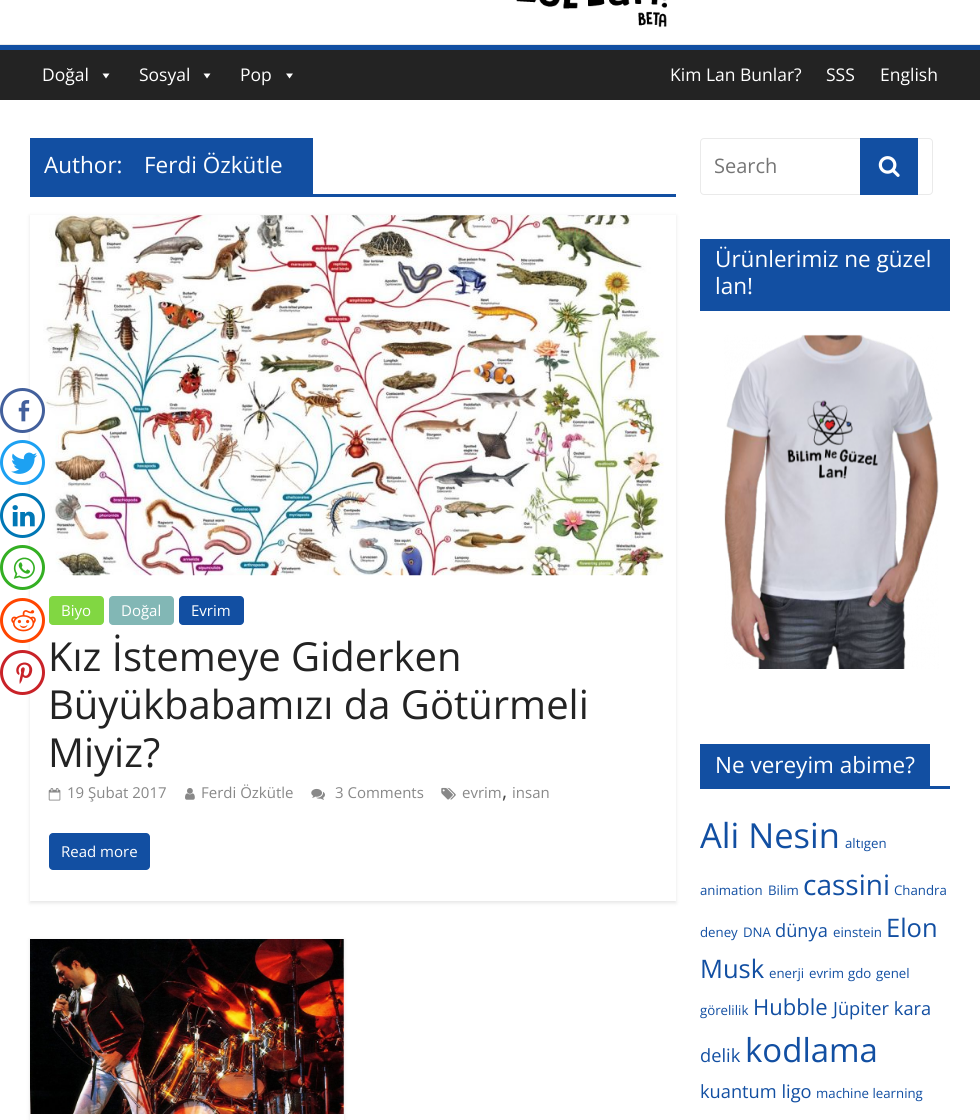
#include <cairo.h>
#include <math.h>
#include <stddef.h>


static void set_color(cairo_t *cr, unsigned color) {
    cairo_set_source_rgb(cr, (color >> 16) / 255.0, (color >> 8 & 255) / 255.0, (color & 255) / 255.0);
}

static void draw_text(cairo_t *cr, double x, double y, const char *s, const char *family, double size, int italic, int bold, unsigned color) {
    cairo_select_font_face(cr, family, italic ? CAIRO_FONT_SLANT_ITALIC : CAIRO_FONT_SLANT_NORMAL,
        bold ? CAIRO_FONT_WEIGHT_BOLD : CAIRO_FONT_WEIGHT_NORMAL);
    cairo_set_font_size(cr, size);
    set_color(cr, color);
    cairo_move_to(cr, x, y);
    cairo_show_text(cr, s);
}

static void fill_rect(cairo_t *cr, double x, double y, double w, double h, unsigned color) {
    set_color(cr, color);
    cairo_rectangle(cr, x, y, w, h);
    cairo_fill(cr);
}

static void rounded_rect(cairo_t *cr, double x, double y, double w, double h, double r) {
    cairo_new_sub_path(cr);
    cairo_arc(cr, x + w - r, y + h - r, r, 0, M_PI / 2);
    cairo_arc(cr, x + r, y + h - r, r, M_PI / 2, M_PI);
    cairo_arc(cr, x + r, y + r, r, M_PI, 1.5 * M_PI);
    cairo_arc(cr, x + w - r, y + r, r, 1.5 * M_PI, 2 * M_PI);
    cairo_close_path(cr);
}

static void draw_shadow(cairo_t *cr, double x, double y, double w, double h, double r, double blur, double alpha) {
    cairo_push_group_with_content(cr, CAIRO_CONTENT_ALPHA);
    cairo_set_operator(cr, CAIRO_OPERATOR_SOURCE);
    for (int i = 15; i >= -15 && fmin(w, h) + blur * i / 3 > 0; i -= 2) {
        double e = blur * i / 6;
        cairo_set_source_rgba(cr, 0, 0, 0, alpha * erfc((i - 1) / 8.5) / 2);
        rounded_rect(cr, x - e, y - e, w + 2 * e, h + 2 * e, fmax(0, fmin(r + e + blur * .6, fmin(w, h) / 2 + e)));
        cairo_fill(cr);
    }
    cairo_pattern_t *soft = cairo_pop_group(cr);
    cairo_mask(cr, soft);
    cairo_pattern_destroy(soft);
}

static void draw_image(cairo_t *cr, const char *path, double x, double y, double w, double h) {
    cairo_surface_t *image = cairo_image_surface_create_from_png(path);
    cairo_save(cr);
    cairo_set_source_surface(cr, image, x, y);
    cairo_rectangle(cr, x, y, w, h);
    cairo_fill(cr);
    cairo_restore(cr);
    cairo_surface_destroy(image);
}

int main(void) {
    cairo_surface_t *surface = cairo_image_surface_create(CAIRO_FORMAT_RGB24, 980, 1120);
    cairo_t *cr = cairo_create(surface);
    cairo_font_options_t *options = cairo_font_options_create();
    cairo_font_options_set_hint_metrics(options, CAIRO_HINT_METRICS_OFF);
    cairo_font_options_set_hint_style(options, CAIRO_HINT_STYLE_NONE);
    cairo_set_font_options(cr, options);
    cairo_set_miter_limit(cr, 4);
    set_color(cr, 0xFFFFFF);
    cairo_paint(cr);
    cairo_save(cr);
    cairo_set_fill_rule(cr, CAIRO_FILL_RULE_EVEN_ODD);
    cairo_new_path(cr);
    cairo_move_to(cr, 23, 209);
    cairo_line_to(cr, 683, 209);
    cairo_line_to(cr, 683, 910);
    cairo_line_to(cr, 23, 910);
    cairo_close_path(cr);
    cairo_move_to(cr, 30, 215);
    cairo_line_to(cr, 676, 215);
    cairo_line_to(cr, 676, 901);
    cairo_line_to(cr, 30, 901);
    cairo_close_path(cr);
    cairo_clip(cr);
    set_color(cr, 0x000000);
    draw_shadow(cr, 30, 216, 646, 687, 0, 2, 0.1);
    cairo_restore(cr);
    draw_image(cr, "assets/img8.png", 43, 215, 621, 361);
    set_color(cr, 0xFFFFFF);
    cairo_arc(cr, 22.5, 410.5, 21, 0, 2 * M_PI);
    cairo_fill_preserve(cr);
    set_color(cr, 0x43609C);
    cairo_set_line_width(cr, 3);
    cairo_stroke(cr);
    draw_image(cr, "assets/img1.png", 18, 400, 12, 22);
    set_color(cr, 0xFFFFFF);
    cairo_arc(cr, 22.5, 462.5, 21, 0, 2 * M_PI);
    cairo_fill_preserve(cr);
    set_color(cr, 0x1DA1F2);
    cairo_stroke(cr);
    draw_image(cr, "assets/img2.png", 11, 452, 27, 22);
    set_color(cr, 0xFFFFFF);
    cairo_arc(cr, 22.5, 515.5, 21, 0, 2 * M_PI);
    cairo_fill_preserve(cr);
    set_color(cr, 0x0077B5);
    cairo_stroke(cr);
    draw_image(cr, "assets/img3.png", 12, 505, 23, 22);
    set_color(cr, 0xFFFFFF);
    cairo_arc(cr, 22.5, 567.5, 21, 0, 2 * M_PI);
    cairo_fill_preserve(cr);
    set_color(cr, 0x34AF23);
    cairo_stroke(cr);
    draw_image(cr, "assets/img4.png", 13, 557, 22, 22);
    set_color(cr, 0xFFFFFF);
    cairo_arc(cr, 22.5, 620.5, 21, 0, 2 * M_PI);
    cairo_fill_preserve(cr);
    set_color(cr, 0xFF4500);
    cairo_stroke(cr);
    draw_image(cr, "assets/img5.png", 11, 610, 25, 22);
    set_color(cr, 0xFFFFFF);
    cairo_arc(cr, 22.5, 672.5, 21, 0, 2 * M_PI);
    cairo_fill_preserve(cr);
    set_color(cr, 0xC92228);
    cairo_stroke(cr);
    draw_image(cr, "assets/img6.png", 16, 662, 17, 22);
    draw_image(cr, "assets/img7.png", 516, 0, 151, 28);
    fill_rect(cr, 0, 44, 980, 1, 0xEAEAEA);
    fill_rect(cr, 0, 50, 980, 50, 0x232323);
    fill_rect(cr, 0, 45, 980, 5, 0x124FA2);
    draw_text(cr, 42, 81, "Doğal", "Open Sans", 17.5, 0, 0, 0xFFFFFF);
    cairo_new_path(cr);
    cairo_move_to(cr, 109.5, 73.5);
    cairo_line_to(cr, 106, 78.5);
    cairo_line_to(cr, 102.5, 73.5);
    cairo_close_path(cr);
    cairo_fill(cr);
    draw_text(cr, 139, 81, "Sosyal", "Open Sans", 17.5, 0, 0, 0xFFFFFF);
    cairo_new_path(cr);
    cairo_move_to(cr, 210.5, 73.5);
    cairo_line_to(cr, 207, 78.5);
    cairo_line_to(cr, 203.5, 73.5);
    cairo_close_path(cr);
    cairo_fill(cr);
    draw_text(cr, 240, 81, "Pop", "Open Sans", 17.5, 0, 0, 0xFFFFFF);
    cairo_new_path(cr);
    cairo_move_to(cr, 293, 73.5);
    cairo_line_to(cr, 289.5, 78.5);
    cairo_line_to(cr, 286, 73.5);
    cairo_close_path(cr);
    cairo_fill(cr);
    draw_text(cr, 670, 81, "Kim Lan Bunlar?", "Open Sans", 17.5, 0, 0, 0xFFFFFF);
    draw_text(cr, 826, 81, "SSS", "Open Sans", 17.5, 0, 0, 0xFFFFFF);
    draw_text(cr, 880, 81, "English", "Open Sans", 17.5, 0, 0, 0xFFFFFF);
    fill_rect(cr, 30, 194, 646, 3, 0x124FA2);
    fill_rect(cr, 30, 138, 283, 56, 0x124FA2);
    draw_text(cr, 44, 173, "Author:", "Open Sans", 22.5, 0, 0, 0xFFFFFF);
    draw_text(cr, 144, 173, "Ferdi Özkütle", "Open Sans", 22.5, 0, 0, 0xFFFFFF);
    set_color(cr, 0x81D742);
    rounded_rect(cr, 49, 596, 55, 29, 4);
    cairo_fill(cr);
    draw_text(cr, 61, 616, "Biyo", "Open Sans", 15, 0, 0, 0xFFFFFF);
    set_color(cr, 0x82B7B5);
    rounded_rect(cr, 109, 596, 65, 29, 4);
    cairo_fill(cr);
    draw_text(cr, 121, 616, "Doğal", "Open Sans", 15, 0, 0, 0xFFFFFF);
    set_color(cr, 0x124FA2);
    rounded_rect(cr, 179, 596, 65, 29, 4);
    cairo_fill(cr);
    draw_text(cr, 191, 616, "Evrim", "Open Sans", 15, 0, 0, 0xFFFFFF);
    draw_text(cr, 48, 671, "Kız İstemeye Giderken", "Open Sans", 40, 0, 0, 0x232323);
    draw_text(cr, 48, 719, "Büyükbabamızı da Götürmeli", "Open Sans", 40, 0, 0, 0x232323);
    draw_text(cr, 48, 767, "Miyiz?", "Open Sans", 40, 0, 0, 0x232323);
    draw_image(cr, "assets/img9.png", 48, 788, 13, 13);
    draw_text(cr, 67, 798, "19 Şubat 2017", "Open Sans", 15, 0, 0, 0x888888);
    draw_image(cr, "assets/img10.png", 185, 788, 10, 12);
    draw_text(cr, 201, 798, "Ferdi Özkütle", "Open Sans", 15, 0, 0, 0x888888);
    draw_image(cr, "assets/img11.png", 311, 788, 14, 12);
    draw_text(cr, 335, 798, "3 Comments", "Open Sans", 15, 0, 0, 0x888888);
    draw_image(cr, "assets/img12.png", 441, 787, 15, 13);
    draw_text(cr, 462, 798, "evrim", "Open Sans", 15, 0, 0, 0x888888);
    draw_text(cr, 502, 798, ",", "Open Sans", 20, 0, 0, 0x444444);
    draw_text(cr, 512, 798, "insan", "Open Sans", 15, 0, 0, 0x888888);
    set_color(cr, 0x124FA2);
    rounded_rect(cr, 49, 833, 101, 37, 4);
    cairo_fill(cr);
    draw_text(cr, 61, 857, "Read more", "Open Sans", 15, 0, 0, 0xFFFFFF);
    cairo_save(cr);
    cairo_set_fill_rule(cr, CAIRO_FILL_RULE_EVEN_ODD);
    cairo_new_path(cr);
    cairo_move_to(cr, 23, 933);
    cairo_line_to(cr, 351, 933);
    cairo_line_to(cr, 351, 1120);
    cairo_line_to(cr, 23, 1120);
    cairo_close_path(cr);
    cairo_move_to(cr, 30, 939);
    cairo_line_to(cr, 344, 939);
    cairo_line_to(cr, 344, 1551);
    cairo_line_to(cr, 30, 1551);
    cairo_close_path(cr);
    cairo_clip(cr);
    set_color(cr, 0x000000);
    draw_shadow(cr, 30, 940, 314, 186, 0, 2, 0.1);
    cairo_restore(cr);
    draw_image(cr, "assets/img13.png", 30, 939, 314, 175);
    rounded_rect(cr, 700.5, 138.5, 232, 56, 3.5);
    set_color(cr, 0xEAEAEA);
    cairo_set_line_width(cr, 1);
    cairo_stroke(cr);
    draw_text(cr, 714, 173, "Search", "Open Sans", 20, 0, 0, 0x757575);
    fill_rect(cr, 860, 138, 58, 57, 0x124FA2);
    draw_image(cr, "assets/img14.png", 878, 156, 22, 21);
    fill_rect(cr, 700, 239, 250, 72, 0x124FA2);
    draw_text(cr, 715, 267, "Ürünlerimiz ne güzel", "Open Sans", 22.5, 0, 0, 0xFFFFFF);
    draw_text(cr, 715, 294, "lan!", "Open Sans", 22.5, 0, 0, 0xFFFFFF);
    draw_image(cr, "assets/img15.png", 724, 334, 215, 335);
    fill_rect(cr, 700, 786, 250, 3, 0x124FA2);
    fill_rect(cr, 700, 744, 230, 42, 0x124FA2);
    draw_text(cr, 715, 773, "Ne vereyim abime?", "Open Sans", 22.5, 0, 0, 0xFFFFFF);
    draw_text(cr, 700, 848, "Ali Nesin", "Open Sans", 34.5, 0, 0, 0x124FA2);
    draw_text(cr, 845, 848, "altıgen", "Open Sans", 13.25, 0, 0, 0x124FA2);
    draw_text(cr, 700, 895, "animation", "Open Sans", 13.25, 0, 0, 0x124FA2);
    draw_text(cr, 768, 895, "Bilim", "Open Sans", 13.25, 0, 0, 0x124FA2);
    draw_text(cr, 803, 895, "cassini", "Open Sans", 28, 0, 0, 0x124FA2);
    draw_text(cr, 894, 895, "Chandra", "Open Sans", 13.25, 0, 0, 0x124FA2);
    draw_text(cr, 700, 937, "deney", "Open Sans", 13.25, 0, 0, 0x124FA2);
    draw_text(cr, 743, 937, "DNA", "Open Sans", 13.25, 0, 0, 0x124FA2);
    draw_text(cr, 775, 937, "dünya", "Open Sans", 18.25, 0, 0, 0x124FA2);
    draw_text(cr, 833, 937, "einstein", "Open Sans", 13.25, 0, 0, 0x124FA2);
    draw_text(cr, 886, 937, "Elon", "Open Sans", 25.5, 0, 0, 0x124FA2);
    draw_text(cr, 700, 978, "Musk", "Open Sans", 25.5, 0, 0, 0x124FA2);
    draw_text(cr, 769, 978, "enerji", "Open Sans", 13.25, 0, 0, 0x124FA2);
    draw_text(cr, 809, 978, "evrim", "Open Sans", 13.25, 0, 0, 0x124FA2);
    draw_text(cr, 848, 978, "gdo", "Open Sans", 13.25, 0, 0, 0x124FA2);
    draw_text(cr, 876, 978, "genel", "Open Sans", 13.25, 0, 0, 0x124FA2);
    draw_text(cr, 700, 1015, "görelilik", "Open Sans", 13.25, 0, 0, 0x124FA2);
    draw_text(cr, 753, 1015, "Hubble", "Open Sans", 22, 0, 0, 0x124FA2);
    draw_text(cr, 833, 1015, "Jüpiter kara", "Open Sans", 18.25, 0, 0, 0x124FA2);
    draw_text(cr, 700, 1062, "delik", "Open Sans", 18.25, 0, 0, 0x124FA2);
    draw_text(cr, 745, 1062, "kodlama", "Open Sans", 33, 0, 0, 0x124FA2);
    draw_text(cr, 700, 1098, "kuantum ligo", "Open Sans", 18.25, 0, 0, 0x124FA2);
    draw_text(cr, 816, 1098, "machine learning", "Open Sans", 13.25, 0, 0, 0x124FA2);
    cairo_surface_write_to_png(surface, "output.png");
    cairo_font_options_destroy(options);
    cairo_destroy(cr);
    cairo_surface_destroy(surface);
    return 0;
}
